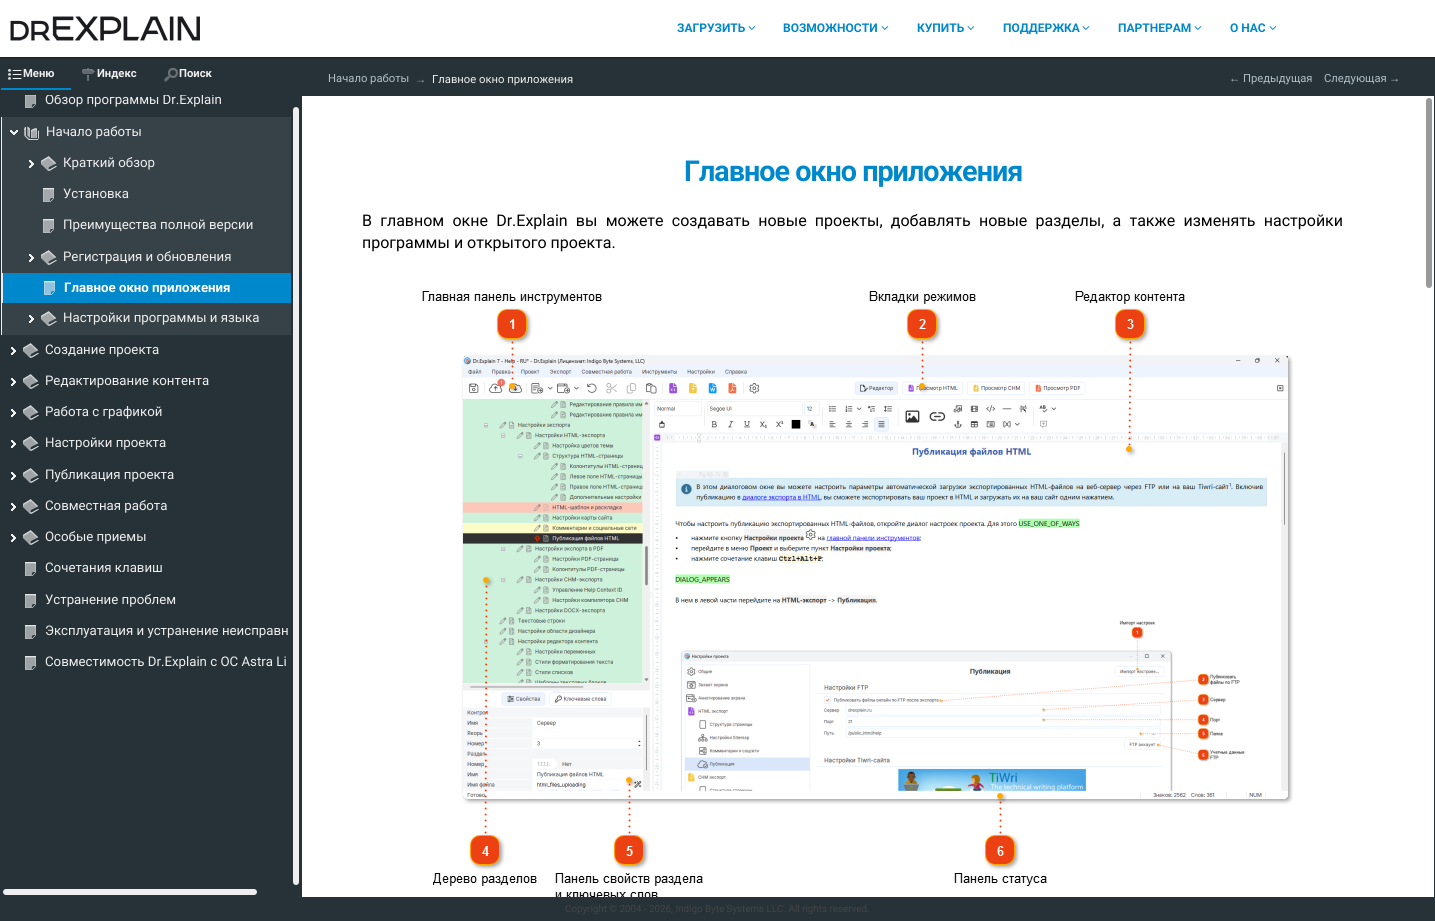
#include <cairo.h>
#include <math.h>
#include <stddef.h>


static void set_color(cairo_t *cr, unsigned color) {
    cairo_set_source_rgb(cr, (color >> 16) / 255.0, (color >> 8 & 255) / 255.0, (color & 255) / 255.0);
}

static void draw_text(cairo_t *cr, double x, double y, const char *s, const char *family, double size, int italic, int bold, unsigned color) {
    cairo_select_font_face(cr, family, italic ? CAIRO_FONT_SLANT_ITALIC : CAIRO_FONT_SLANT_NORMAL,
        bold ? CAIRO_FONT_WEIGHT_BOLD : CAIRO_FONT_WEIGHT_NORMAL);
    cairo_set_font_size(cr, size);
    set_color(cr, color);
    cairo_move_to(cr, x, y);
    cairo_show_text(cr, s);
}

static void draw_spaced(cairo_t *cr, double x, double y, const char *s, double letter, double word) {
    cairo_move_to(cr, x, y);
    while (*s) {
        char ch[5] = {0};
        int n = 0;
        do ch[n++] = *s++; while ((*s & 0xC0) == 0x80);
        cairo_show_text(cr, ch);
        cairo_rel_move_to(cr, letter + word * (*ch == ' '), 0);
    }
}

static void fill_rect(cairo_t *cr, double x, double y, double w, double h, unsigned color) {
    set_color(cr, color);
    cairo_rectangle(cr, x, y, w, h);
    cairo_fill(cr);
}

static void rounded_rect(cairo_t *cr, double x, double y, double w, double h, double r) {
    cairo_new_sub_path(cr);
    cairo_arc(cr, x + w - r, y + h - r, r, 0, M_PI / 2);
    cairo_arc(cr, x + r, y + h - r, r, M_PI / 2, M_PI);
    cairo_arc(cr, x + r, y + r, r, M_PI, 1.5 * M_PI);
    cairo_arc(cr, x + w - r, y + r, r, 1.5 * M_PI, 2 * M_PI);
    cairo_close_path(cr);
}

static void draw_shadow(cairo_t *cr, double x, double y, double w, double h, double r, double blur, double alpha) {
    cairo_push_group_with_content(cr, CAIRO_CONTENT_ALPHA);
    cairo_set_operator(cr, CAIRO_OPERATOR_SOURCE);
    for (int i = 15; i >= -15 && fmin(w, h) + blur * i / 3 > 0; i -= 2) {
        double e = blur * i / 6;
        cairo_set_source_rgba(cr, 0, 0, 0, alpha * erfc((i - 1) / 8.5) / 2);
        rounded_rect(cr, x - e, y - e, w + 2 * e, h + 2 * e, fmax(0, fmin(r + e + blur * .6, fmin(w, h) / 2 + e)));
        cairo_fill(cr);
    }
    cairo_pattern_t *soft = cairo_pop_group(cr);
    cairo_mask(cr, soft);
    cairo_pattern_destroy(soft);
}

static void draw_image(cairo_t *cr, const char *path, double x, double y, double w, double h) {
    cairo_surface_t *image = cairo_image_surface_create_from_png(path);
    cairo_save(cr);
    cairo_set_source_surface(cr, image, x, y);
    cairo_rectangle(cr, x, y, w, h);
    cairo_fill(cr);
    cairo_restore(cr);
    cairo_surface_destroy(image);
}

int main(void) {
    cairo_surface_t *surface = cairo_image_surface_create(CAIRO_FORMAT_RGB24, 1435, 921);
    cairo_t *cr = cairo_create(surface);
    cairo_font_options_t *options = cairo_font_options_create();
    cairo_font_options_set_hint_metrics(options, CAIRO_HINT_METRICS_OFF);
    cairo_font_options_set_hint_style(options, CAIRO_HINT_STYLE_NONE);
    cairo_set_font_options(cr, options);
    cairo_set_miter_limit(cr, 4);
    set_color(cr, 0x263238);
    cairo_paint(cr);
    set_color(cr, 0x000000);
    draw_shadow(cr, 0, 0, 1435, 57, 0, 1, 1);
    fill_rect(cr, 0, 0, 1435, 57, 0xFFFFFF);
    draw_image(cr, "assets/img1.png", 10, 16, 190, 25);
    draw_text(cr, 677, 32, "ЗАГРУЗИТЬ", "Roboto", 12, 0, 1, 0x0088CC);
    draw_image(cr, "assets/img2.png", 748, 26, 8, 4);
    draw_text(cr, 783, 32, "ВОЗМОЖНОСТИ", "Roboto", 12, 0, 1, 0x0088CC);
    draw_image(cr, "assets/img2.png", 881, 26, 8, 4);
    draw_text(cr, 917, 32, "КУПИТЬ", "Roboto", 12, 0, 1, 0x0088CC);
    draw_image(cr, "assets/img2.png", 967, 26, 8, 4);
    draw_text(cr, 1003, 32, "ПОДДЕРЖКА", "Roboto", 12, 0, 1, 0x0088CC);
    draw_image(cr, "assets/img2.png", 1082, 26, 8, 4);
    draw_text(cr, 1118, 32, "ПАРТНЕРАМ", "Roboto", 12, 0, 1, 0x0088CC);
    draw_image(cr, "assets/img2.png", 1194, 26, 8, 4);
    draw_text(cr, 1230, 32, "О НАС", "Roboto", 12, 0, 1, 0x0088CC);
    draw_image(cr, "assets/img2.png", 1269, 26, 8, 4);
    draw_image(cr, "assets/img3.png", 8, 69, 14, 11);
    fill_rect(cr, 1, 88, 70, 2, 0x0088CC);
    draw_text(cr, 23, 77, "Меню", "Roboto", 11.25, 0, 1, 0xEEEEEE);
    draw_image(cr, "assets/img4.png", 82, 68, 13, 13);
    draw_text(cr, 97, 77, "Индекс", "Roboto", 11.25, 0, 1, 0xEEEEEE);
    draw_image(cr, "assets/img5.png", 164, 68, 14, 14);
    draw_text(cr, 179, 77, "Поиск", "Roboto", 11.25, 0, 1, 0xEEEEEE);
    draw_image(cr, "assets/img6.png", 25, 95, 11, 13);
    cairo_save(cr);
    cairo_rectangle(cr, 1, 95, 300, 583);
    cairo_clip(cr);
    draw_text(cr, 45, 104, "Обзор программы Dr.Explain", "Roboto", 13.25, 0, 0, 0xEEEEEE);
    cairo_restore(cr);
    fill_rect(cr, 2, 117, 289, 218, 0x374248);
    fill_rect(cr, 1, 117, 1, 218, 0xEEEEEE);
    draw_image(cr, "assets/img7.png", 10, 130, 8, 5);
    draw_image(cr, "assets/img8.png", 24, 126, 15, 14);
    draw_text(cr, 46, 136, "Начало работы", "Roboto", 13.25, 0, 0, 0xEEEEEE);
    draw_image(cr, "assets/img9.png", 29, 160, 5, 8);
    draw_image(cr, "assets/img10.png", 41, 156, 16, 15);
    draw_text(cr, 63, 167, "Краткий обзор", "Roboto", 13.25, 0, 0, 0xEEEEEE);
    draw_image(cr, "assets/img11.png", 43, 188, 11, 14);
    draw_text(cr, 63, 198, "Установка", "Roboto", 13.25, 0, 0, 0xEEEEEE);
    draw_image(cr, "assets/img11.png", 43, 219, 11, 14);
    draw_text(cr, 63, 229, "Преимущества полной версии", "Roboto", 13.25, 0, 0, 0xEEEEEE);
    draw_image(cr, "assets/img9.png", 29, 254, 5, 8);
    draw_image(cr, "assets/img10.png", 41, 250, 16, 15);
    draw_text(cr, 63, 261, "Регистрация и обновления", "Roboto", 13.25, 0, 0, 0xEEEEEE);
    fill_rect(cr, 2, 273, 1, 30, 0xEEEEEE);
    fill_rect(cr, 3, 273, 288, 30, 0x0088CC);
    draw_image(cr, "assets/img12.png", 44, 281, 11, 14);
    draw_text(cr, 64, 292, "Главное окно приложения", "Roboto", 13.25, 0, 1, 0xFFFFFF);
    draw_image(cr, "assets/img9.png", 29, 315, 5, 8);
    draw_image(cr, "assets/img10.png", 41, 311, 16, 15);
    draw_text(cr, 63, 322, "Настройки программы и языка", "Roboto", 13.25, 0, 0, 0xEEEEEE);
    draw_image(cr, "assets/img13.png", 11, 347, 5, 8);
    draw_image(cr, "assets/img14.png", 23, 343, 16, 15);
    draw_text(cr, 45, 354, "Создание проекта", "Roboto", 13.25, 0, 0, 0xEEEEEE);
    draw_image(cr, "assets/img13.png", 11, 378, 5, 8);
    draw_image(cr, "assets/img14.png", 23, 374, 16, 15);
    draw_text(cr, 45, 385, "Редактирование контента", "Roboto", 13.25, 0, 0, 0xEEEEEE);
    draw_image(cr, "assets/img13.png", 11, 409, 5, 8);
    draw_image(cr, "assets/img14.png", 23, 405, 16, 15);
    draw_text(cr, 45, 416, "Работа с графикой", "Roboto", 13.25, 0, 0, 0xEEEEEE);
    draw_image(cr, "assets/img13.png", 11, 440, 5, 8);
    draw_image(cr, "assets/img14.png", 23, 436, 16, 15);
    draw_text(cr, 45, 447, "Настройки проекта", "Roboto", 13.25, 0, 0, 0xEEEEEE);
    draw_image(cr, "assets/img13.png", 11, 472, 5, 8);
    draw_image(cr, "assets/img14.png", 23, 468, 16, 15);
    draw_text(cr, 45, 479, "Публикация проекта", "Roboto", 13.25, 0, 0, 0xEEEEEE);
    draw_image(cr, "assets/img13.png", 11, 503, 5, 8);
    draw_image(cr, "assets/img14.png", 23, 499, 16, 15);
    draw_text(cr, 45, 510, "Совместная работа", "Roboto", 13.25, 0, 0, 0xEEEEEE);
    draw_image(cr, "assets/img13.png", 11, 534, 5, 8);
    draw_image(cr, "assets/img14.png", 23, 530, 16, 15);
    draw_text(cr, 45, 541, "Особые приемы", "Roboto", 13.25, 0, 0, 0xEEEEEE);
    draw_image(cr, "assets/img15.png", 25, 562, 11, 14);
    draw_text(cr, 45, 572, "Сочетания клавиш", "Roboto", 13.25, 0, 0, 0xEEEEEE);
    draw_image(cr, "assets/img15.png", 25, 594, 11, 14);
    draw_text(cr, 45, 604, "Устранение проблем", "Roboto", 13.25, 0, 0, 0xEEEEEE);
    draw_image(cr, "assets/img15.png", 25, 625, 11, 14);
    draw_text(cr, 45, 635, "Эксплуатация и устранение неисправн", "Roboto", 13.25, 0, 0, 0xEEEEEE);
    draw_image(cr, "assets/img15.png", 25, 656, 11, 14);
    draw_text(cr, 45, 666, "Совместимость Dr.Explain с ОС Astra Li", "Roboto", 13.25, 0, 0, 0xEEEEEE);
    rounded_rect(cr, 293, 107, 6, 778, 3);
    cairo_fill(cr);
    rounded_rect(cr, 3, 889, 254, 6, 3);
    cairo_fill(cr);
    draw_text(cr, 328, 82, "Начало работы", "Roboto", 11.25, 0, 0, 0xB0BEC5);
    draw_text(cr, 415, 83, "→", "Liberation Serif", 11.25, 0, 0, 0xA1A1A1);
    draw_text(cr, 432, 83, "Главное окно приложения", "Roboto", 11.25, 0, 0, 0xEEEEEE);
    draw_text(cr, 1229, 82, "←", "Liberation Sans", 11.25, 0, 0, 0xB0BEC5);
    draw_text(cr, 1243, 82, "Предыдущая", "Roboto", 11.25, 0, 0, 0xB0BEC5);
    draw_text(cr, 1324, 82, "Следующая", "Roboto", 11.25, 0, 0, 0xB0BEC5);
    draw_text(cr, 1389, 82, "→", "Liberation Sans", 11.25, 0, 0, 0xB0BEC5);
    fill_rect(cr, 302, 96, 1132, 801, 0xFFFFFF);
    cairo_select_font_face(cr, "Roboto", CAIRO_FONT_SLANT_NORMAL, CAIRO_FONT_WEIGHT_BOLD);
    cairo_set_font_size(cr, 28.75);
    set_color(cr, 0x0088CC);
    draw_spaced(cr, 684, 181, "Главное окно приложения", -1, 0);
    cairo_select_font_face(cr, "Roboto", CAIRO_FONT_SLANT_NORMAL, CAIRO_FONT_WEIGHT_NORMAL);
    cairo_set_font_size(cr, 16);
    set_color(cr, 0x000000);
    draw_spaced(cr, 362, 226, "В главном окне Dr.Explain вы можете создавать новые проекты, добавлять новые разделы, а также изменять настройки", 0, 4.25);
    draw_text(cr, 362, 248, "программы и открытого проекта.", "Roboto", 16, 0, 0, 0x000000);
    draw_image(cr, "assets/img16.png", 422, 291, 871, 606);
    set_color(cr, 0x999999);
    rounded_rect(cr, 1426, 98, 6, 190, 3);
    cairo_fill(cr);
    draw_text(cr, 565, 912, "Copyright © 2004 - 2026, Indigo Byte Systems LLC. All rights reserved.", "Roboto", 9.8, 0, 0, 0x444444);
    cairo_surface_write_to_png(surface, "output.png");
    cairo_font_options_destroy(options);
    cairo_destroy(cr);
    cairo_surface_destroy(surface);
    return 0;
}
